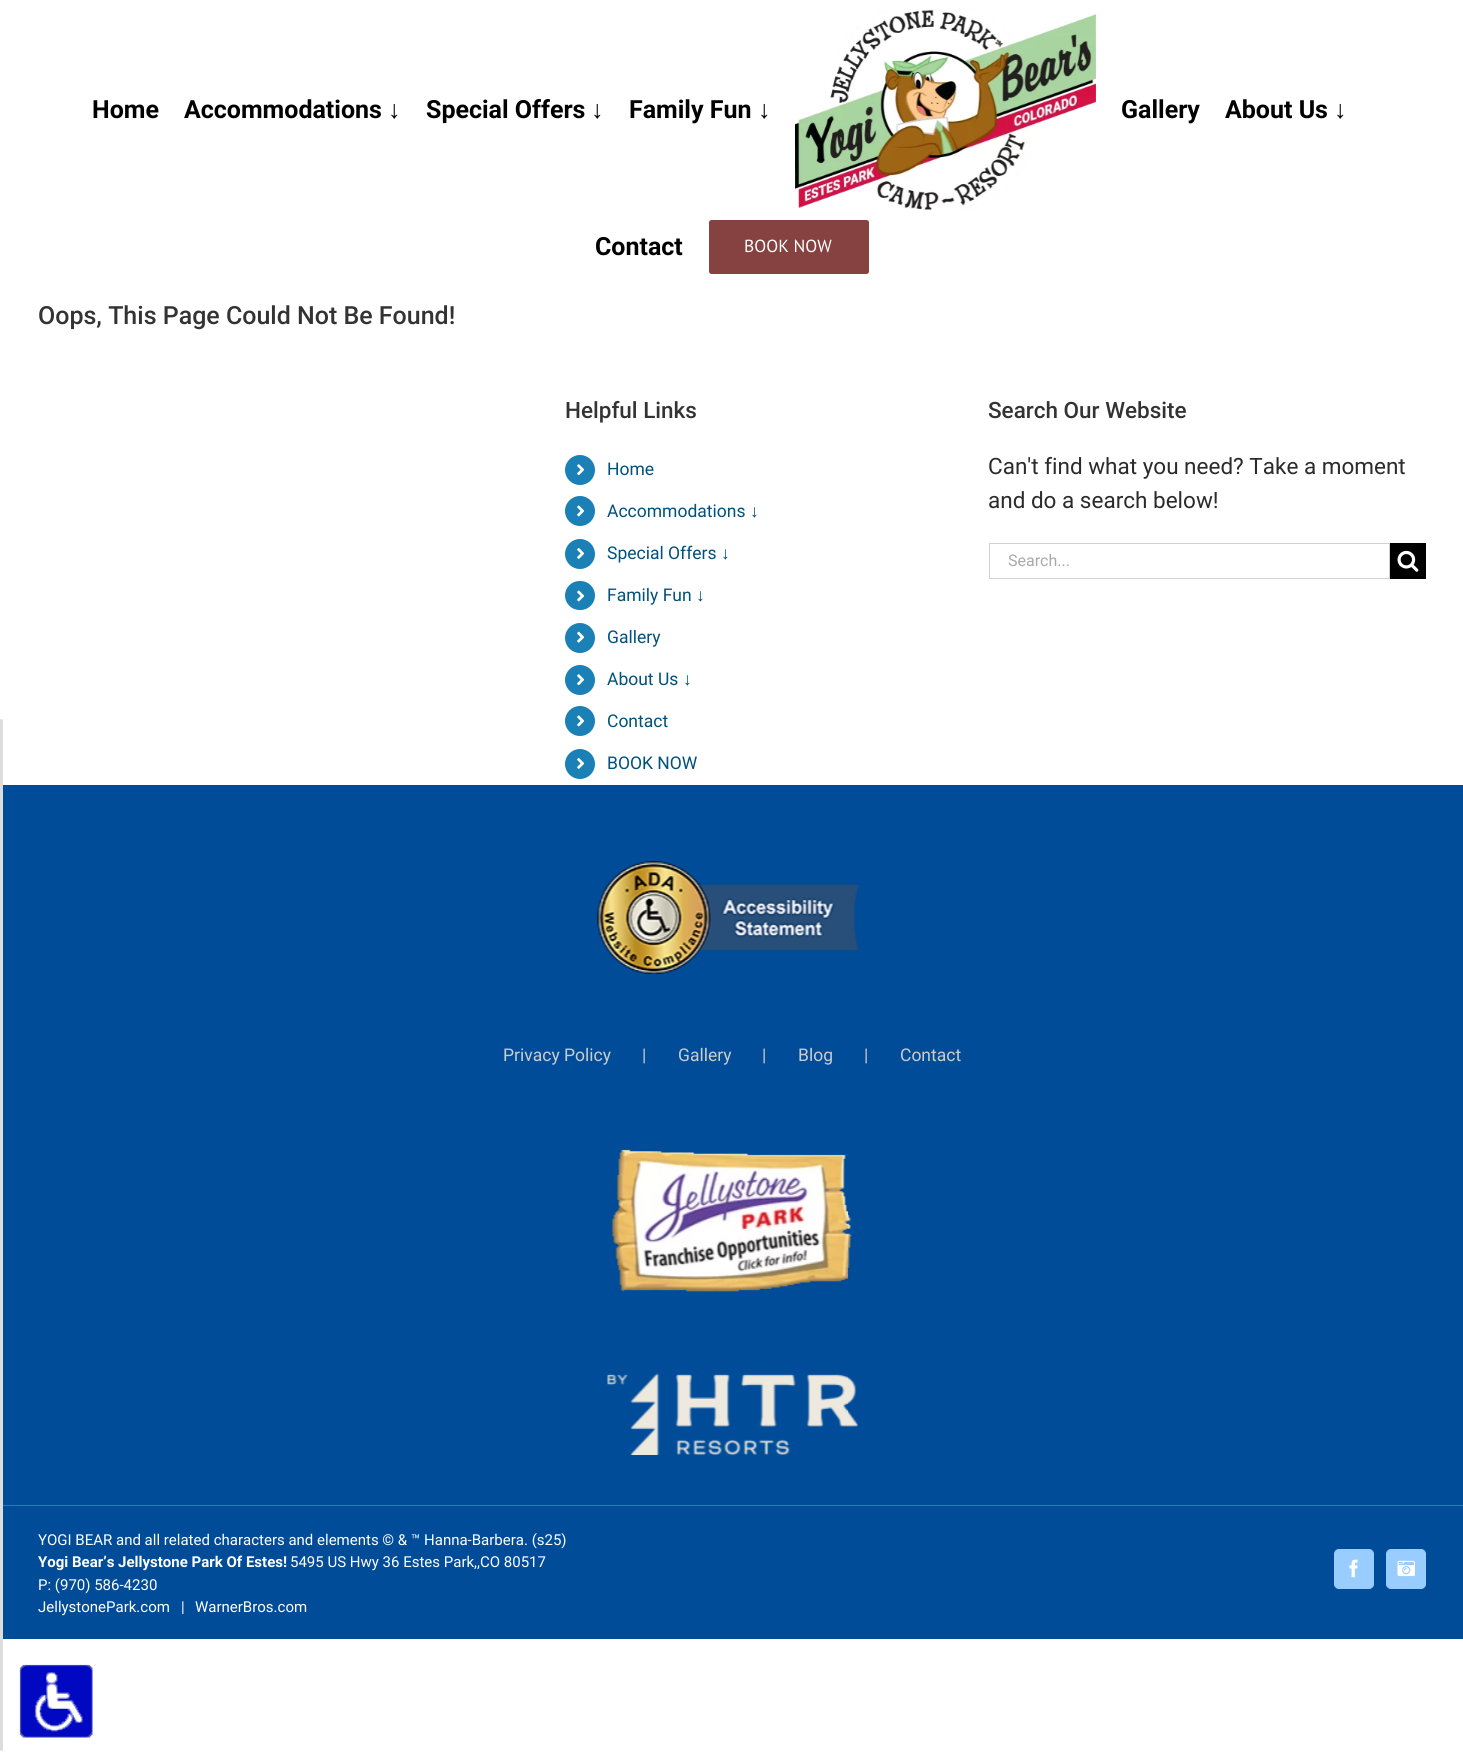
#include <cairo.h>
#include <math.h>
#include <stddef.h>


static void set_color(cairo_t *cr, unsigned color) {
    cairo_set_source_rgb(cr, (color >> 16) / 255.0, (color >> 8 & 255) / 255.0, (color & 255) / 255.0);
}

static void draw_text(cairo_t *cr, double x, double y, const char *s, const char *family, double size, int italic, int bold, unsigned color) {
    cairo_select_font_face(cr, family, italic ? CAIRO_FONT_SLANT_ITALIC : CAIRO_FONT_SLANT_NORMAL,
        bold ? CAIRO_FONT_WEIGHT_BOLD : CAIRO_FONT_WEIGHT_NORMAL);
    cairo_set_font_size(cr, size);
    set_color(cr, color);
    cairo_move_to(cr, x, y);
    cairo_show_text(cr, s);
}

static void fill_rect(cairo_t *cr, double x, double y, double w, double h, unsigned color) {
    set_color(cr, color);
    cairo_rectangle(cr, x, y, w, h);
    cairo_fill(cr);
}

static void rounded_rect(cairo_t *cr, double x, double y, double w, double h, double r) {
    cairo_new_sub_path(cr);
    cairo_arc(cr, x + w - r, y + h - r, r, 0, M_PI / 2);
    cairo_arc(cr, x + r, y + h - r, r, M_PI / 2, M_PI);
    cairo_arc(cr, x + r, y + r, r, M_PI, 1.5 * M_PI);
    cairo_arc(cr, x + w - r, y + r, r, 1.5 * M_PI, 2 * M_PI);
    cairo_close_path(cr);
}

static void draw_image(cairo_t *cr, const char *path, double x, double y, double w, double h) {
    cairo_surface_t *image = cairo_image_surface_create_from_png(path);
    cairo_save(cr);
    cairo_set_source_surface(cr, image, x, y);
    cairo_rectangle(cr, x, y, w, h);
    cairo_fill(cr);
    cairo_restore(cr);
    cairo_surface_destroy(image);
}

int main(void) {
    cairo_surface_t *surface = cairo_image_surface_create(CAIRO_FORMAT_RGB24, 1463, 1757);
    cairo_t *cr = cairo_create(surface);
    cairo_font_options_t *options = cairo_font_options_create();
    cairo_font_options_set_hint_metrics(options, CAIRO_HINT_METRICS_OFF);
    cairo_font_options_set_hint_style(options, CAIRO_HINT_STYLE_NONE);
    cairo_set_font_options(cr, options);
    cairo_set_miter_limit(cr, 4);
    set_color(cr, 0xFFFFFF);
    cairo_paint(cr);
    draw_text(cr, 92, 118, "Home", "Roboto", 25, 0, 1, 0x000000);
    draw_text(cr, 184, 118, "Accommodations", "Roboto", 25, 0, 1, 0x000000);
    draw_text(cr, 388, 118, "↓", "Liberation Serif", 25, 0, 1, 0x000000);
    draw_text(cr, 426, 118, "Special Offers", "Roboto", 25, 0, 1, 0x000000);
    draw_text(cr, 591, 118, "↓", "Liberation Serif", 25, 0, 1, 0x000000);
    draw_text(cr, 629, 118, "Family Fun", "Roboto", 25, 0, 1, 0x000000);
    draw_text(cr, 758, 118, "↓", "Liberation Serif", 25, 0, 1, 0x000000);
    draw_image(cr, "assets/img1.png", 795, 8, 301, 202);
    draw_text(cr, 1121, 118, "Gallery", "Roboto", 25, 0, 1, 0x000000);
    draw_text(cr, 1225, 118, "About Us", "Roboto", 25, 0, 1, 0x000000);
    draw_text(cr, 1334, 118, "↓", "Liberation Serif", 25, 0, 1, 0x000000);
    draw_text(cr, 595, 255, "Contact", "Roboto", 25, 0, 1, 0x000000);
    set_color(cr, 0x864141);
    rounded_rect(cr, 709, 220, 160, 54, 2.5);
    cairo_fill(cr);
    draw_text(cr, 744, 252, "BOOK NOW", "PT Sans", 17.5, 0, 0, 0xFFFFFF);
    draw_text(cr, 38, 324, "Oops, This Page Could Not Be Found!", "Roboto Medium", 25, 0, 0, 0x333333);
    draw_text(cr, 565, 418, "Helpful Links", "Roboto Medium", 22.5, 0, 0, 0x333333);
    set_color(cr, 0x1A80B6);
    cairo_new_path(cr);
    cairo_arc(cr, 580, 470, 15, 0, 2 * M_PI);
    cairo_fill(cr);
    draw_image(cr, "assets/img2.png", 577, 464, 8, 12);
    draw_text(cr, 607, 475, "Home", "Roboto", 17.5, 0, 0, 0x00517C);
    set_color(cr, 0x1A80B6);
    cairo_new_path(cr);
    cairo_arc(cr, 580, 511, 15, 0, 2 * M_PI);
    cairo_fill(cr);
    draw_image(cr, "assets/img3.png", 577, 505, 8, 12);
    draw_text(cr, 607, 517, "Accommodations", "Roboto", 17.5, 0, 0, 0x00517C);
    draw_text(cr, 750, 517, "↓", "Liberation Serif", 17.5, 0, 0, 0x00517C);
    set_color(cr, 0x1A80B6);
    cairo_new_path(cr);
    cairo_arc(cr, 580, 554, 15, 0, 2 * M_PI);
    cairo_fill(cr);
    draw_image(cr, "assets/img4.png", 577, 548, 8, 11);
    draw_text(cr, 607, 559, "Special Offers", "Roboto", 17.5, 0, 0, 0x00517C);
    draw_text(cr, 721, 559, "↓", "Liberation Serif", 17.5, 0, 0, 0x00517C);
    set_color(cr, 0x1A80B6);
    rounded_rect(cr, 565, 581, 30, 29, 14.5);
    cairo_fill(cr);
    draw_image(cr, "assets/img3.png", 577, 590, 8, 12);
    draw_text(cr, 607, 601, "Family Fun", "Roboto", 17.5, 0, 0, 0x00517C);
    draw_text(cr, 696, 601, "↓", "Liberation Serif", 17.5, 0, 0, 0x00517C);
    set_color(cr, 0x1A80B6);
    cairo_new_path(cr);
    cairo_arc(cr, 580, 638, 15, 0, 2 * M_PI);
    cairo_fill(cr);
    draw_image(cr, "assets/img5.png", 577, 631, 8, 12);
    draw_text(cr, 607, 643, "Gallery", "Roboto", 17.5, 0, 0, 0x00517C);
    set_color(cr, 0x1A80B6);
    cairo_new_path(cr);
    cairo_arc(cr, 580, 680, 15, 0, 2 * M_PI);
    cairo_fill(cr);
    draw_image(cr, "assets/img2.png", 577, 674, 8, 12);
    draw_text(cr, 607, 685, "About Us", "Roboto", 17.5, 0, 0, 0x00517C);
    draw_text(cr, 683, 685, "↓", "Liberation Serif", 17.5, 0, 0, 0x00517C);
    set_color(cr, 0x1A80B6);
    cairo_new_path(cr);
    cairo_arc(cr, 580, 721, 15, 0, 2 * M_PI);
    cairo_fill(cr);
    draw_image(cr, "assets/img3.png", 577, 715, 8, 12);
    draw_text(cr, 607, 727, "Contact", "Roboto", 17.5, 0, 0, 0x00517C);
    set_color(cr, 0x1A80B6);
    cairo_new_path(cr);
    cairo_arc(cr, 580, 764, 15, 0, 2 * M_PI);
    cairo_fill(cr);
    draw_image(cr, "assets/img4.png", 577, 758, 8, 11);
    draw_text(cr, 607, 769, "BOOK NOW", "Roboto", 17.5, 0, 0, 0x00517C);
    draw_text(cr, 988, 418, "Search Our Website", "Roboto Medium", 22.5, 0, 0, 0x333333);
    draw_text(cr, 988, 474, "Can't find what you need? Take a moment", "Roboto", 22.5, 0, 0, 0x2B2B2B);
    draw_text(cr, 988, 508, "and do a search below!", "Roboto", 22.5, 0, 0, 0x2B2B2B);
    cairo_rectangle(cr, 989.5, 543.5, 400, 35);
    set_color(cr, 0xD2D2D2);
    cairo_set_line_width(cr, 1);
    cairo_stroke(cr);
    draw_text(cr, 1008, 566, "Search...", "Roboto", 16, 0, 0, 0xAAA9A9);
    fill_rect(cr, 1390, 543, 36, 36, 0x000000);
    draw_image(cr, "assets/img6.png", 1397, 550, 22, 22);
    fill_rect(cr, 3, 785, 1460, 720, 0x004C99);
    draw_image(cr, "assets/img7.png", 597, 861, 263, 113);
    draw_text(cr, 503, 1061, "Privacy Policy", "Roboto", 17.5, 0, 0, 0xCCCCCC);
    draw_text(cr, 642, 1061, "|", "Roboto", 17.5, 0, 0, 0xCCCCCC);
    draw_text(cr, 678, 1061, "Gallery", "Roboto", 17.5, 0, 0, 0xCCCCCC);
    draw_text(cr, 762, 1061, "|", "Roboto", 17.5, 0, 0, 0xCCCCCC);
    draw_text(cr, 798, 1061, "Blog", "Roboto", 17.5, 0, 0, 0xCCCCCC);
    draw_text(cr, 864, 1061, "|", "Roboto", 17.5, 0, 0, 0xCCCCCC);
    draw_text(cr, 900, 1061, "Contact", "Roboto", 17.5, 0, 0, 0xCCCCCC);
    draw_image(cr, "assets/img8.png", 611, 1149, 241, 143);
    draw_image(cr, "assets/img9.png", 607, 1373, 251, 82);
    fill_rect(cr, 3, 1506, 1460, 133, 0x004C99);
    fill_rect(cr, 0, 1505, 1463, 1, 0x1A80B6);
    draw_text(cr, 38, 1545, "YOGI BEAR and all related characters and elements © & ™ Hanna-Barbera. (s25)", "Roboto", 15, 0, 0, 0xFFFFFF);
    draw_text(cr, 38, 1567, "Yogi Bear’s Jellystone Park Of Estes!", "Roboto", 15, 0, 1, 0xFFFFFF);
    draw_text(cr, 290, 1567, "5495 US Hwy 36 Estes Park,,CO 80517", "Roboto", 15, 0, 0, 0xFFFFFF);
    draw_text(cr, 38, 1590, "P: (970) 586-4230", "Roboto", 15, 0, 0, 0xFFFFFF);
    draw_text(cr, 38, 1612, "JellystonePark.com", "Roboto", 15, 0, 0, 0xFFFFFF);
    draw_text(cr, 181, 1612, "|", "Roboto", 15, 0, 0, 0xFFFFFF);
    draw_text(cr, 195, 1612, "WarnerBros.com", "Roboto", 15, 0, 0, 0xFFFFFF);
    set_color(cr, 0x99CCFF);
    rounded_rect(cr, 1334.5, 1549.5, 39, 39, 4.5);
    cairo_fill_preserve(cr);
    cairo_stroke(cr);
    draw_image(cr, "assets/img10.png", 1349, 1559, 9, 19);
    rounded_rect(cr, 1386.5, 1549.5, 39, 39, 4.5);
    cairo_fill_preserve(cr);
    cairo_stroke(cr);
    draw_image(cr, "assets/img11.png", 1397, 1560, 18, 17);
    set_color(cr, 0xDDDDDD);
    rounded_rect(cr, 0, 719, 3, 1032, 1.5);
    cairo_fill(cr);
    draw_image(cr, "assets/img12.png", 19, 1664, 74, 74);
    cairo_surface_write_to_png(surface, "output.png");
    cairo_font_options_destroy(options);
    cairo_destroy(cr);
    cairo_surface_destroy(surface);
    return 0;
}
